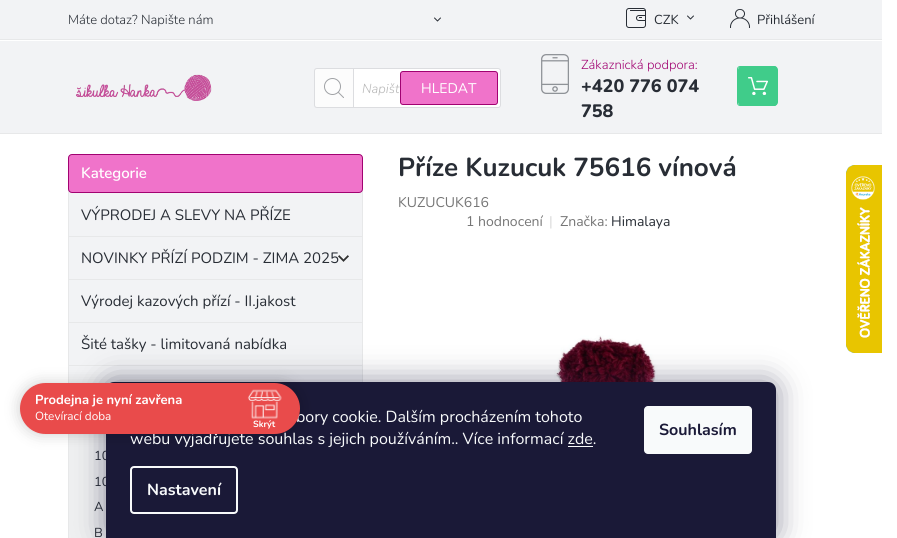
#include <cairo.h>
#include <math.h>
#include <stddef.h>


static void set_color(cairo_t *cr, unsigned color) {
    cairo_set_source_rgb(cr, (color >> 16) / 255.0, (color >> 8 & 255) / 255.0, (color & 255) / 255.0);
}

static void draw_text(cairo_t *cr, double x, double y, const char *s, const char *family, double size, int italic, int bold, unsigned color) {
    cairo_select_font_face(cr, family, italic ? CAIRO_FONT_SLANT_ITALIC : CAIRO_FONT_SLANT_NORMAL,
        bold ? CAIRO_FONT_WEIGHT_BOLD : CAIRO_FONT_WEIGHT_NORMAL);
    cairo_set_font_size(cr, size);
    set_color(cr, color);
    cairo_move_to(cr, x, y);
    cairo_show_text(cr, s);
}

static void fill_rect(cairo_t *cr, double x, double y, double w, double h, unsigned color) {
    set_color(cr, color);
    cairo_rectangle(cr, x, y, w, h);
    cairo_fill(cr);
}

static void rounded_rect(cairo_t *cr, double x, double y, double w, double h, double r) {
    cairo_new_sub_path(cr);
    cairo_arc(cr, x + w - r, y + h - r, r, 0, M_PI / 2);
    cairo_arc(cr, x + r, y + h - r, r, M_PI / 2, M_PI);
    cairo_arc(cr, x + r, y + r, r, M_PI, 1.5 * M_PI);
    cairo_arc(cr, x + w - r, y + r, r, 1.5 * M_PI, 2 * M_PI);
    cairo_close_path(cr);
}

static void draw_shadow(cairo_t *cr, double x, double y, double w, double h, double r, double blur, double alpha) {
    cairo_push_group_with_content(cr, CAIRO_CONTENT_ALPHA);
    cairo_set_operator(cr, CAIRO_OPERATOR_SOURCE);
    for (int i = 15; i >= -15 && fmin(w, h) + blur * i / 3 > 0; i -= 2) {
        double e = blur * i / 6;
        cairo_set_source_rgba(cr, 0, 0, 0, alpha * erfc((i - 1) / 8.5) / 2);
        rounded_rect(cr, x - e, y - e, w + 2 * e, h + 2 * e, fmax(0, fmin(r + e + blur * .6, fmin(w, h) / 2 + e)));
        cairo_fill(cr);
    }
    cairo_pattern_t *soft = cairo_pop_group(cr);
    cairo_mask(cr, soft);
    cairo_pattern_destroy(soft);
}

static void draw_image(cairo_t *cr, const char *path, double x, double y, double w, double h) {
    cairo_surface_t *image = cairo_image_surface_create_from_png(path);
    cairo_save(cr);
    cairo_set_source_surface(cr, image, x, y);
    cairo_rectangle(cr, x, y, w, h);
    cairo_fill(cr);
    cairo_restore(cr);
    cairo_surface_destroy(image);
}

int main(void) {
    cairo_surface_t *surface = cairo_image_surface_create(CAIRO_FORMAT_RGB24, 897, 538);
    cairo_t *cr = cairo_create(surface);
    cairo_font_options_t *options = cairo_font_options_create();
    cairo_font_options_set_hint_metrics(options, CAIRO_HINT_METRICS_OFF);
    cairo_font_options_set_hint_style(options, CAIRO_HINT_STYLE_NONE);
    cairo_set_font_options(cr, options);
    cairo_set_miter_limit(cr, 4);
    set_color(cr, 0xFFFFFF);
    cairo_paint(cr);
    fill_rect(cr, 0, 0, 882, 39, 0xF2F3F5);
    fill_rect(cr, 0, 39, 882, 1, 0xE7E8E9);
    draw_text(cr, 68, 24, "Máte dotaz? Napište nám", "Nunito Light", 13, 0, 0, 0x282D35);
    draw_image(cr, "assets/img1.png", 434, 17, 7, 5);
    draw_image(cr, "assets/img2.png", 626, 8, 20, 20);
    draw_text(cr, 654, 24, "CZK", "Nunito", 13, 0, 0, 0x282D35);
    draw_image(cr, "assets/img1.png", 687, 15, 7, 5);
    draw_image(cr, "assets/img3.png", 730, 9, 20, 19);
    draw_text(cr, 757, 24, "Přihlášení", "Nunito", 13, 0, 0, 0x282D35);
    fill_rect(cr, 0, 41, 882, 92, 0xF2F3F5);
    fill_rect(cr, 0, 133, 882, 1, 0xE7E8E9);
    draw_image(cr, "assets/img4.png", 76, 74, 136, 27);
    set_color(cr, 0xFFFFFF);
    rounded_rect(cr, 314.5, 68.5, 186, 39, 2.5);
    cairo_fill_preserve(cr);
    set_color(cr, 0xDCDDE0);
    cairo_set_line_width(cr, 1);
    cairo_stroke(cr);
    set_color(cr, 0xFCFCFC);
    cairo_new_path(cr);
    cairo_move_to(cr, 317, 68);
    cairo_line_to(cr, 354, 68);
    cairo_line_to(cr, 354, 108);
    cairo_line_to(cr, 317, 108);
    cairo_curve_to(cr, 315.5, 108, 314, 106.5, 314, 105);
    cairo_line_to(cr, 314, 71);
    cairo_curve_to(cr, 314, 69.5, 315.5, 68, 317, 68);
    cairo_close_path(cr);
    cairo_fill(cr);
    draw_image(cr, "assets/img5.png", 324, 78, 20, 20);
    cairo_new_path(cr);
    cairo_move_to(cr, 317, 68.5);
    cairo_line_to(cr, 353.5, 68.5);
    cairo_line_to(cr, 353.5, 107.5);
    cairo_line_to(cr, 317, 107.5);
    cairo_curve_to(cr, 315.5, 107.5, 314.5, 106.5, 314.5, 105);
    cairo_line_to(cr, 314.5, 71);
    cairo_curve_to(cr, 314.5, 69.5, 315.5, 68.5, 317, 68.5);
    cairo_close_path(cr);
    set_color(cr, 0xDCDDE0);
    cairo_stroke(cr);
    draw_text(cr, 362, 93, "Napišt", "Nunito Light", 13, 1, 0, 0xB6B6B6);
    set_color(cr, 0xF073CA);
    rounded_rect(cr, 400.5, 71.5, 97, 33, 2.5);
    cairo_fill_preserve(cr);
    set_color(cr, 0xA10271);
    cairo_stroke(cr);
    draw_text(cr, 421, 93, "HLEDAT", "Nunito", 14, 0, 0, 0xFFFFFF);
    draw_image(cr, "assets/img6.png", 541, 54, 28, 40);
    draw_text(cr, 581, 69, "Zákaznická podpora:", "Nunito Light", 13, 0, 0, 0xA10271);
    draw_text(cr, 581, 92, "+420 776 074", "Nunito ExtraBold", 18, 0, 0, 0x282D35);
    draw_text(cr, 581, 117, "758", "Nunito ExtraBold", 18, 0, 0, 0x282D35);
    rounded_rect(cr, 737.5, 66.5, 39, 39, 2.5);
    set_color(cr, 0x40CC8A);
    cairo_stroke(cr);
    rounded_rect(cr, 738, 66, 40, 40, 4);
    cairo_fill(cr);
    draw_image(cr, "assets/img7.png", 748, 77, 20, 18);
    fill_rect(cr, 69, 191, 293, 192, 0xF2F3F5);
    cairo_rectangle(cr, 68.5, 188.5, 294, 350);
    set_color(cr, 0xE7E8E9);
    cairo_stroke(cr);
    set_color(cr, 0xF073CA);
    rounded_rect(cr, 68.5, 154.5, 294, 38, 3.5);
    cairo_fill_preserve(cr);
    set_color(cr, 0xA10271);
    cairo_stroke(cr);
    draw_text(cr, 81, 178, "Kategorie", "Nunito SemiBold", 15, 0, 0, 0xFFFFFF);
    fill_rect(cr, 69, 236, 293, 1, 0xE7E8E9);
    draw_text(cr, 81, 220, "VÝPRODEJ A SLEVY NA PŘÍZE", "Nunito", 15, 0, 0, 0x282D35);
    fill_rect(cr, 69, 279, 293, 1, 0xE7E8E9);
    draw_text(cr, 81, 263, "NOVINKY PŘÍZÍ PODZIM - ZIMA 2025", "Nunito", 15, 0, 0, 0x282D35);
    draw_image(cr, "assets/img8.png", 338, 255, 11, 7);
    fill_rect(cr, 69, 322, 293, 1, 0xE7E8E9);
    draw_text(cr, 81, 306, "Výrodej kazových přízí - II.jakost", "Nunito", 15, 0, 0, 0x282D35);
    fill_rect(cr, 69, 365, 293, 1, 0xE7E8E9);
    draw_text(cr, 81, 349, "Šité tašky - limitovaná nabídka", "Nunito", 15, 0, 0, 0x282D35);
    fill_rect(cr, 69, 434, 37, 104, 0xEFF0F1);
    draw_text(cr, 94, 460, "10", "Nunito", 13, 0, 0, 0x282D35);
    draw_text(cr, 94, 486, "10", "Nunito", 13, 0, 0, 0x282D35);
    draw_text(cr, 94, 511, "A", "Nunito", 13, 0, 0, 0x282D35);
    draw_text(cr, 94, 537, "B", "Nunito", 13, 0, 0, 0x282D35);
    draw_text(cr, 398, 176, "Příze Kuzucuk 75616 vínová", "Nunito", 26, 0, 1, 0x282D35);
    draw_text(cr, 398, 207, "KUZUCUK616", "Nunito", 14, 0, 0, 0x767676);
    draw_text(cr, 466, 226, "1 hodnocení", "Nunito", 14, 0, 0, 0x767676);
    draw_text(cr, 549, 226, "|", "Nunito", 14, 0, 0, 0xDADADA);
    draw_text(cr, 560, 226, "Značka:", "Nunito", 14, 0, 0, 0x767676);
    draw_text(cr, 611, 226, "Himalaya", "Nunito", 14, 0, 0, 0x282D35);
    draw_image(cr, "assets/img9.png", 554, 335, 104, 47);
    draw_image(cr, "assets/img10.png", 846, 165, 36, 188);
    set_color(cr, 0x1B1939);
    draw_shadow(cr, 106, 382, 670, 156, 8, 15, 0.5);
    set_color(cr, 0x1A1937);
    cairo_new_path(cr);
    cairo_move_to(cr, 114, 382);
    cairo_line_to(cr, 768, 382);
    cairo_curve_to(cr, 772.5, 382, 776, 385.5, 776, 390);
    cairo_line_to(cr, 776, 538);
    cairo_line_to(cr, 106, 538);
    cairo_line_to(cr, 106, 390);
    cairo_curve_to(cr, 106, 385.5, 109.5, 382, 114, 382);
    cairo_close_path(cr);
    cairo_fill(cr);
    set_color(cr, 0x000000);
    draw_shadow(cr, 20, 383, 280, 51, 25.5, 7.5, 0.2);
    draw_text(cr, 296, 422, "bory cookie. Dalším procházením tohoto", "Nunito", 16, 0, 0, 0xF8FAFB);
    draw_text(cr, 130, 444, "webu vyjadřujete souhlas s jejich používáním.. Více informací zde.", "Nunito", 16, 0, 0, 0xF8FAFB);
    set_color(cr, 0xE94B4B);
    rounded_rect(cr, 20, 383, 280, 51, 25.5);
    cairo_fill(cr);
    draw_text(cr, 35, 404, "Prodejna je nyní zavřena", "Nunito", 13, 0, 1, 0xFFFFFF);
    draw_text(cr, 35, 420, "Otevírací doba", "Nunito", 11.75, 0, 0, 0xFFFFFF);
    draw_image(cr, "assets/img11.png", 247, 389, 35, 30);
    draw_text(cr, 253, 427, "Skrýt", "Nunito", 9, 0, 1, 0xFFFFFF);
    fill_rect(cr, 568, 446, 25, 1, 0xF8FAFB);
    rounded_rect(cr, 131, 467, 106, 46, 3);
    cairo_set_line_width(cr, 2);
    cairo_stroke(cr);
    draw_text(cr, 147, 495, "Nastavení", "Nunito", 16, 0, 1, 0xF8FAFB);
    rounded_rect(cr, 644, 406, 108, 48, 4);
    cairo_fill(cr);
    draw_text(cr, 659, 435, "Souhlasím", "Nunito", 16, 0, 1, 0x1A1937);
    cairo_surface_write_to_png(surface, "output.png");
    cairo_font_options_destroy(options);
    cairo_destroy(cr);
    cairo_surface_destroy(surface);
    return 0;
}
